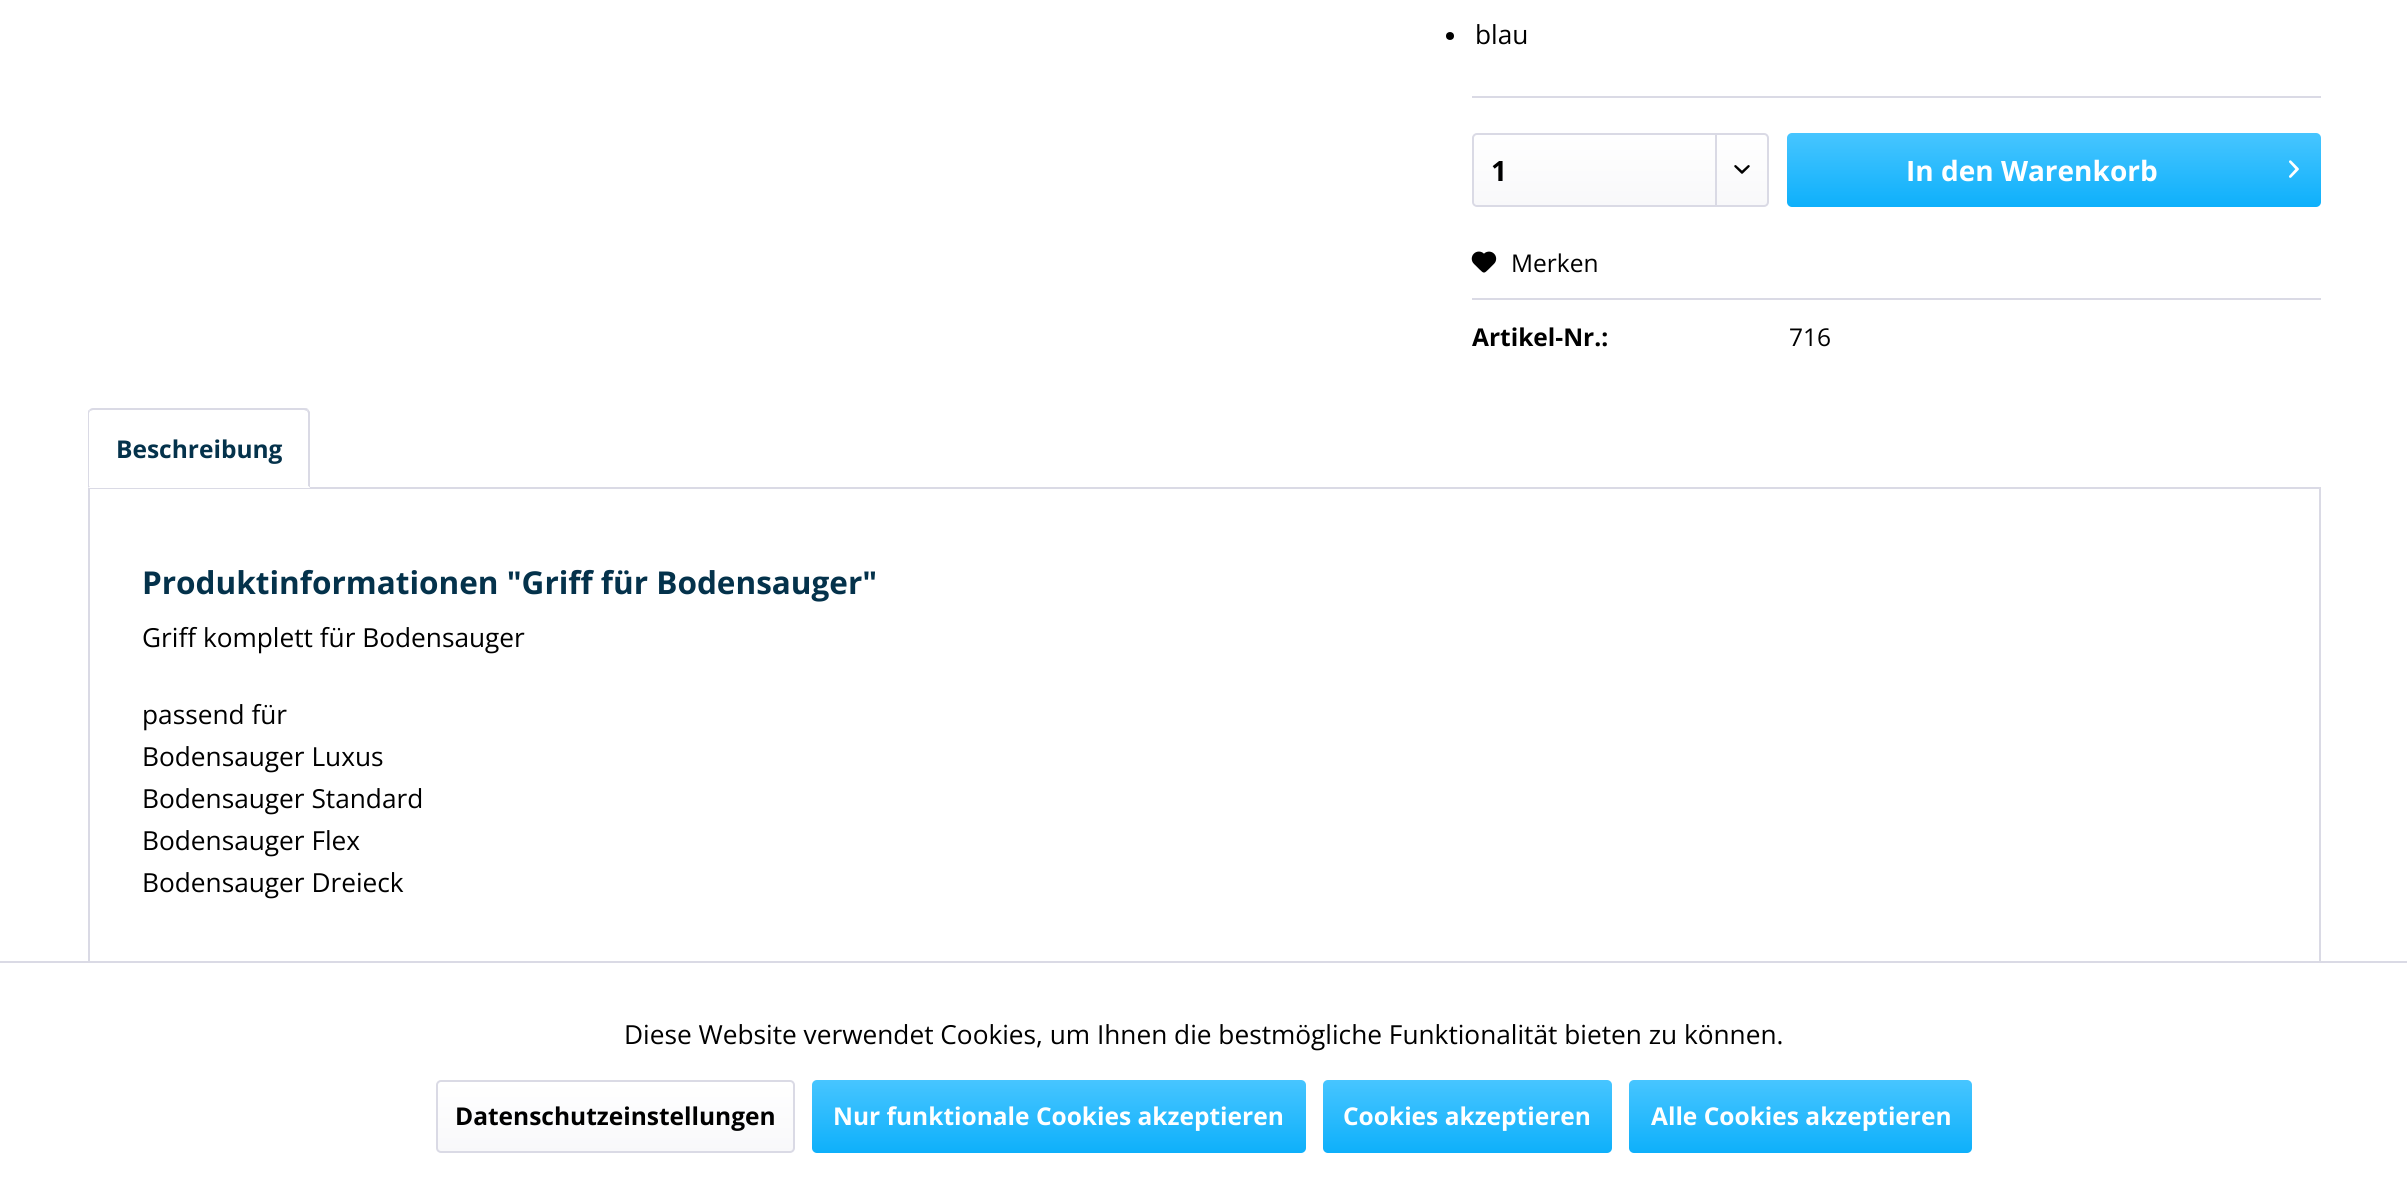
#include <cairo.h>
#include <math.h>
#include <stddef.h>


static void set_color(cairo_t *cr, unsigned color) {
    cairo_set_source_rgb(cr, (color >> 16) / 255.0, (color >> 8 & 255) / 255.0, (color & 255) / 255.0);
}

static void draw_text(cairo_t *cr, double x, double y, const char *s, const char *family, double size, int italic, int bold, unsigned color) {
    cairo_select_font_face(cr, family, italic ? CAIRO_FONT_SLANT_ITALIC : CAIRO_FONT_SLANT_NORMAL,
        bold ? CAIRO_FONT_WEIGHT_BOLD : CAIRO_FONT_WEIGHT_NORMAL);
    cairo_set_font_size(cr, size);
    set_color(cr, color);
    cairo_move_to(cr, x, y);
    cairo_show_text(cr, s);
}

static void fill_rect(cairo_t *cr, double x, double y, double w, double h, unsigned color) {
    set_color(cr, color);
    cairo_rectangle(cr, x, y, w, h);
    cairo_fill(cr);
}

static void rounded_rect(cairo_t *cr, double x, double y, double w, double h, double r) {
    cairo_new_sub_path(cr);
    cairo_arc(cr, x + w - r, y + h - r, r, 0, M_PI / 2);
    cairo_arc(cr, x + r, y + h - r, r, M_PI / 2, M_PI);
    cairo_arc(cr, x + r, y + r, r, M_PI, 1.5 * M_PI);
    cairo_arc(cr, x + w - r, y + r, r, 1.5 * M_PI, 2 * M_PI);
    cairo_close_path(cr);
}

static void draw_image(cairo_t *cr, const char *path, double x, double y, double w, double h) {
    cairo_surface_t *image = cairo_image_surface_create_from_png(path);
    cairo_save(cr);
    cairo_set_source_surface(cr, image, x, y);
    cairo_rectangle(cr, x, y, w, h);
    cairo_fill(cr);
    cairo_restore(cr);
    cairo_surface_destroy(image);
}

int main(void) {
    cairo_surface_t *surface = cairo_image_surface_create(CAIRO_FORMAT_RGB24, 2407, 1196);
    cairo_t *cr = cairo_create(surface);
    cairo_font_options_t *options = cairo_font_options_create();
    cairo_font_options_set_hint_metrics(options, CAIRO_HINT_METRICS_OFF);
    cairo_font_options_set_hint_style(options, CAIRO_HINT_STYLE_NONE);
    cairo_set_font_options(cr, options);
    cairo_set_miter_limit(cr, 4);
    cairo_pattern_t *gradient;
    set_color(cr, 0xFFFFFF);
    cairo_paint(cr);
    fill_rect(cr, 1472, 96, 849, 2, 0xDADAE5);
    set_color(cr, 0x000000);
    cairo_arc(cr, 1450, 36, 4, 0, 2 * M_PI);
    cairo_fill(cr);
    draw_text(cr, 1475, 44, "blau", "Open Sans", 26.25, 0, 0, 0x000000);
    gradient = cairo_pattern_create_linear(1621, 135, 1621, 205);
    cairo_pattern_add_color_stop_rgba(gradient, 0, 1, 1, 1, 1);
    cairo_pattern_add_color_stop_rgba(gradient, 1, 0.973, 0.973, 0.98, 1);
    cairo_set_source(cr, gradient);
    cairo_pattern_destroy(gradient);
    rounded_rect(cr, 1474, 135, 294, 70, 4);
    cairo_fill(cr);
    rounded_rect(cr, 1473, 134, 295, 72, 4);
    set_color(cr, 0xDADAE5);
    cairo_stroke(cr);
    draw_text(cr, 1491, 181, "1", "Open Sans", 28, 0, 1, 0x000000);
    fill_rect(cr, 1715, 135, 2, 70, 0xDADAE5);
    draw_image(cr, "assets/img1.png", 1734, 165, 16, 9);
    gradient = cairo_pattern_create_linear(2054, 133, 2054, 207);
    cairo_pattern_add_color_stop_rgba(gradient, 0, 0.278, 0.773, 1, 1);
    cairo_pattern_add_color_stop_rgba(gradient, 1, 0.055, 0.69, 0.984, 1);
    cairo_set_source(cr, gradient);
    cairo_pattern_destroy(gradient);
    rounded_rect(cr, 1787, 133, 534, 74, 5);
    cairo_fill(cr);
    draw_text(cr, 1906, 181, "In den Warenkorb", "Open Sans", 28, 0, 1, 0xFFFFFF);
    draw_image(cr, "assets/img2.png", 2289, 160, 10, 18);
    fill_rect(cr, 1472, 298, 849, 2, 0xDADAE5);
    draw_image(cr, "assets/img3.png", 1471, 251, 26, 22);
    draw_text(cr, 1511, 272, "Merken", "Open Sans", 24.5, 0, 0, 0x000000);
    draw_text(cr, 1472, 346, "Artikel-Nr.:", "Open Sans", 24.5, 0, 1, 0x000000);
    draw_text(cr, 1789, 346, "716", "Open Sans", 24.5, 0, 0, 0x000000);
    cairo_rectangle(cr, 89, 488, 2231, 663);
    set_color(cr, 0xDADAE5);
    cairo_stroke(cr);
    set_color(cr, 0xFFFFFF);
    cairo_new_path(cr);
    cairo_move_to(cr, 93, 408);
    cairo_line_to(cr, 305, 408);
    cairo_curve_to(cr, 308, 408, 310, 410, 310, 413);
    cairo_line_to(cr, 310, 488);
    cairo_line_to(cr, 88, 488);
    cairo_line_to(cr, 88, 413);
    cairo_curve_to(cr, 88, 410, 90, 408, 93, 408);
    cairo_close_path(cr);
    cairo_fill(cr);
    set_color(cr, 0xDADAE5);
    cairo_new_path(cr);
    cairo_move_to(cr, 93, 408);
    cairo_curve_to(cr, 91, 408, 90, 409, 89, 410);
    cairo_line_to(cr, 90, 411);
    cairo_line_to(cr, 93, 410);
    cairo_line_to(cr, 304, 410);
    cairo_line_to(cr, 307, 411);
    cairo_line_to(cr, 308, 409);
    cairo_curve_to(cr, 307, 408, 306, 408, 304, 408);
    cairo_close_path(cr);
    cairo_fill(cr);
    cairo_new_path(cr);
    cairo_move_to(cr, 308, 409);
    cairo_line_to(cr, 310, 412);
    cairo_line_to(cr, 310, 488);
    cairo_line_to(cr, 308, 486);
    cairo_line_to(cr, 308, 413);
    cairo_line_to(cr, 307, 411);
    cairo_close_path(cr);
    cairo_fill(cr);
    set_color(cr, 0xFFFFFF);
    cairo_new_path(cr);
    cairo_move_to(cr, 310, 488);
    cairo_line_to(cr, 88, 488);
    cairo_line_to(cr, 90, 486);
    cairo_line_to(cr, 308, 486);
    cairo_close_path(cr);
    cairo_fill(cr);
    set_color(cr, 0xDADAE5);
    cairo_new_path(cr);
    cairo_move_to(cr, 89, 410);
    cairo_curve_to(cr, 88, 410, 88, 412, 88, 413);
    cairo_line_to(cr, 88, 488);
    cairo_line_to(cr, 90, 486);
    cairo_line_to(cr, 89, 486);
    cairo_line_to(cr, 89, 413);
    cairo_line_to(cr, 90, 411);
    cairo_close_path(cr);
    cairo_fill(cr);
    draw_text(cr, 116, 458, "Beschreibung", "Open Sans", 24.5, 0, 1, 0x04324B);
    draw_text(cr, 142, 594, "Produktinformationen \"Griff für Bodensauger\"", "Open Sans", 31.5, 0, 1, 0x04324B);
    draw_text(cr, 142, 647, "Griff komplett für Bodensauger", "Open Sans", 26.25, 0, 0, 0x000000);
    draw_text(cr, 142, 724, "passend für", "Open Sans", 26.25, 0, 0, 0x000000);
    draw_text(cr, 142, 766, "Bodensauger Luxus", "Open Sans", 26.25, 0, 0, 0x000000);
    draw_text(cr, 142, 808, "Bodensauger Standard", "Open Sans", 26.25, 0, 0, 0x000000);
    draw_text(cr, 142, 850, "Bodensauger Flex", "Open Sans", 26.25, 0, 0, 0x000000);
    draw_text(cr, 142, 892, "Bodensauger Dreieck", "Open Sans", 26.25, 0, 0, 0x000000);
    fill_rect(cr, 88, 963, 2233, 189, 0xFFFFFF);
    fill_rect(cr, 0, 961, 2407, 2, 0xDADAE5);
    draw_text(cr, 624, 1044, "Diese Website verwendet Cookies, um Ihnen die bestmögliche Funktionalität bieten zu können.", "Open Sans", 26.25, 0, 0, 0x000000);
    gradient = cairo_pattern_create_linear(615, 1082, 615, 1152);
    cairo_pattern_add_color_stop_rgba(gradient, 0, 1, 1, 1, 1);
    cairo_pattern_add_color_stop_rgba(gradient, 1, 0.973, 0.973, 0.98, 1);
    cairo_set_source(cr, gradient);
    cairo_pattern_destroy(gradient);
    rounded_rect(cr, 438, 1082, 355, 70, 4);
    cairo_fill(cr);
    rounded_rect(cr, 437, 1081, 357, 71, 4);
    set_color(cr, 0xDADAE5);
    cairo_stroke(cr);
    draw_text(cr, 455, 1125, "Datenschutzeinstellungen", "Open Sans", 24.5, 0, 1, 0x000000);
    gradient = cairo_pattern_create_linear(1059, 1080, 1059, 1153);
    cairo_pattern_add_color_stop_rgba(gradient, 0, 0.278, 0.773, 1, 1);
    cairo_pattern_add_color_stop_rgba(gradient, 1, 0.055, 0.69, 0.984, 1);
    cairo_set_source(cr, gradient);
    cairo_pattern_destroy(gradient);
    rounded_rect(cr, 812, 1080, 494, 73, 5);
    cairo_fill(cr);
    draw_text(cr, 833, 1125, "Nur funktionale Cookies akzeptieren", "Open Sans", 24.5, 0, 1, 0xFFFFFF);
    gradient = cairo_pattern_create_linear(1467, 1080, 1467, 1153);
    cairo_pattern_add_color_stop_rgba(gradient, 0, 0.278, 0.773, 1, 1);
    cairo_pattern_add_color_stop_rgba(gradient, 1, 0.055, 0.69, 0.984, 1);
    cairo_set_source(cr, gradient);
    cairo_pattern_destroy(gradient);
    rounded_rect(cr, 1323, 1080, 289, 73, 5);
    cairo_fill(cr);
    draw_text(cr, 1343, 1125, "Cookies akzeptieren", "Open Sans", 24.5, 0, 1, 0xFFFFFF);
    gradient = cairo_pattern_create_linear(1801, 1080, 1801, 1153);
    cairo_pattern_add_color_stop_rgba(gradient, 0, 0.278, 0.773, 1, 1);
    cairo_pattern_add_color_stop_rgba(gradient, 1, 0.055, 0.69, 0.984, 1);
    cairo_set_source(cr, gradient);
    cairo_pattern_destroy(gradient);
    rounded_rect(cr, 1629, 1080, 343, 73, 5);
    cairo_fill(cr);
    draw_text(cr, 1651, 1125, "Alle Cookies akzeptieren", "Open Sans", 24.5, 0, 1, 0xFFFFFF);
    cairo_surface_write_to_png(surface, "output.png");
    cairo_font_options_destroy(options);
    cairo_destroy(cr);
    cairo_surface_destroy(surface);
    return 0;
}
